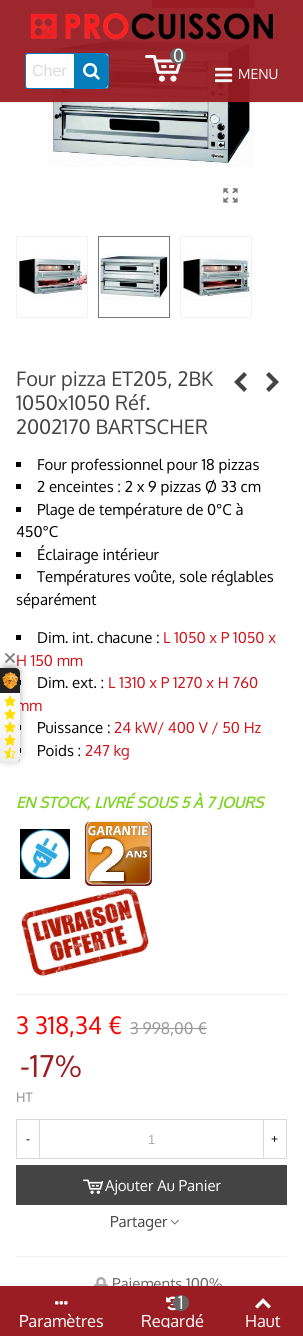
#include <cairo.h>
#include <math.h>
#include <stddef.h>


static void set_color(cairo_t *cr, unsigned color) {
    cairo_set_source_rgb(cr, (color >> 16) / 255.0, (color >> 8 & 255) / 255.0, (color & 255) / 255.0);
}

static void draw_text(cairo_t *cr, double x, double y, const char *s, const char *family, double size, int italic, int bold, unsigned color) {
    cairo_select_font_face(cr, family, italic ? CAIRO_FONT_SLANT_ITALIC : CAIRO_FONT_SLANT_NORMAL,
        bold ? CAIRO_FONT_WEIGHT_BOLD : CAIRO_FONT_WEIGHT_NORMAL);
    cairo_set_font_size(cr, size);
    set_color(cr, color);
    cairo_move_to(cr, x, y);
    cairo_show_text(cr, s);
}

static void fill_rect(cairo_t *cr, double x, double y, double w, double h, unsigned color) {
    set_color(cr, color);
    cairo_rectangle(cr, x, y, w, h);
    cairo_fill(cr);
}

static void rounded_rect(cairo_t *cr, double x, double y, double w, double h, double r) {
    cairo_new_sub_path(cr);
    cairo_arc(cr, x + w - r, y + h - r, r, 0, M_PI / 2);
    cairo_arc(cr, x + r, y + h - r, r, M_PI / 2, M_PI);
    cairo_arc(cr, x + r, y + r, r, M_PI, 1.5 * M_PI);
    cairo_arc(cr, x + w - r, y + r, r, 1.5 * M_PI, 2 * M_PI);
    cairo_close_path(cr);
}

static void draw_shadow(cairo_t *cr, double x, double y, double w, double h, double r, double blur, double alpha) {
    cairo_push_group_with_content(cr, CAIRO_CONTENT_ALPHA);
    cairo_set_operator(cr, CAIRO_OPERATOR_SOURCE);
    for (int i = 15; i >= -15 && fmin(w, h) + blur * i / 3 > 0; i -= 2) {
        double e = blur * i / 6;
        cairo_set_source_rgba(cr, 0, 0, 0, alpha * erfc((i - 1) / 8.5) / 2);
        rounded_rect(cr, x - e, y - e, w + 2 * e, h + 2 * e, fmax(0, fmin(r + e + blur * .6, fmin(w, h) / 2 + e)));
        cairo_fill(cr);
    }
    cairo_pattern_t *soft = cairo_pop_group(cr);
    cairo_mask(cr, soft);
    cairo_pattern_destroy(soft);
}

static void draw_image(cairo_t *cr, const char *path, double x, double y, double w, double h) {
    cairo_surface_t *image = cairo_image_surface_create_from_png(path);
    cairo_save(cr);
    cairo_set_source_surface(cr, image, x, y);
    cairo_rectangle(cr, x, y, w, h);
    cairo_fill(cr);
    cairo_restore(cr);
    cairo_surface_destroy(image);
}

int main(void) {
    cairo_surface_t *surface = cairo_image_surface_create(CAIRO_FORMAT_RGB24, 303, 1336);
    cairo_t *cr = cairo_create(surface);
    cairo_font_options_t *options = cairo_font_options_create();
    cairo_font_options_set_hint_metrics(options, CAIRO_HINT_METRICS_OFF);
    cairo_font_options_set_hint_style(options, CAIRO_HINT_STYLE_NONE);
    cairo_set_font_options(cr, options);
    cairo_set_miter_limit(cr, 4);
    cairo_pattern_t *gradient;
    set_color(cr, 0xFFFFFF);
    cairo_paint(cr);
    fill_rect(cr, 152, 0, 103, 8, 0xDF0034);
    draw_image(cr, "assets/img5.png", 48, 37, 206, 130);
    cairo_save(cr);
    cairo_rectangle(cr, 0, 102, 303, 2);
    cairo_clip(cr);
    set_color(cr, 0x000000);
    draw_shadow(cr, 0, 0, 303, 102, 0, 2, 0.1);
    cairo_restore(cr);
    cairo_set_source_rgba(cr, 0.604, 0.114, 0.137, 0.95);
    cairo_rectangle(cr, 0, 0, 303, 102);
    cairo_fill(cr);
    draw_image(cr, "assets/img1.png", 30, 13, 244, 27);
    draw_image(cr, "assets/img2.png", 145, 55, 37, 27);
    set_color(cr, 0x666666);
    cairo_arc(cr, 178, 56, 8, 0, 2 * M_PI);
    cairo_fill(cr);
    draw_text(cr, 173, 62, "0", "Oxygen", 18, 0, 0, 0xFFFFFF);
    rounded_rect(cr, 25.5, 53.5, 83, 35, 2.5);
    cairo_fill_preserve(cr);
    set_color(cr, 0x057DBA);
    cairo_set_line_width(cr, 1);
    cairo_stroke(cr);
    set_color(cr, 0xFFFFFF);
    cairo_new_path(cr);
    cairo_move_to(cr, 29, 54);
    cairo_line_to(cr, 74, 54);
    cairo_line_to(cr, 74, 88);
    cairo_line_to(cr, 29, 88);
    cairo_curve_to(cr, 27.5, 88, 26, 86.5, 26, 85);
    cairo_line_to(cr, 26, 57);
    cairo_curve_to(cr, 26, 55.5, 27.5, 54, 29, 54);
    cairo_close_path(cr);
    cairo_fill(cr);
    draw_text(cr, 32, 76, "Cher", "Liberation Sans", 16, 0, 0, 0xDADADA);
    set_color(cr, 0x057DBA);
    cairo_new_path(cr);
    cairo_move_to(cr, 74, 54);
    cairo_line_to(cr, 105, 54);
    cairo_curve_to(cr, 106.5, 54, 108, 55.5, 108, 57);
    cairo_line_to(cr, 108, 85);
    cairo_curve_to(cr, 108, 86.5, 106.5, 88, 105, 88);
    cairo_line_to(cr, 74, 88);
    cairo_close_path(cr);
    cairo_fill(cr);
    draw_image(cr, "assets/img3.png", 83, 63, 17, 17);
    draw_image(cr, "assets/img4.png", 215, 67, 18, 16);
    draw_text(cr, 238, 79, "MENU", "Oxygen", 14, 0, 0, 0xF6F6F6);
    draw_image(cr, "assets/img6.png", 223, 188, 15, 15);
    cairo_rectangle(cr, 16.5, 236.5, 71, 81);
    set_color(cr, 0xF2F2F2);
    cairo_stroke(cr);
    draw_image(cr, "assets/img7.png", 17, 254, 70, 47);
    cairo_rectangle(cr, 98.5, 236.5, 71, 81);
    set_color(cr, 0x777777);
    cairo_stroke(cr);
    draw_image(cr, "assets/img8.png", 99, 253, 70, 48);
    cairo_rectangle(cr, 180.5, 236.5, 71, 81);
    set_color(cr, 0xF2F2F2);
    cairo_stroke(cr);
    draw_image(cr, "assets/img9.png", 181, 253, 70, 48);
    draw_text(cr, 16, 386, "Four pizza ET205, 2BK", "Oxygen", 20, 0, 0, 0x444444);
    draw_text(cr, 16, 410, "1050x1050 Réf.", "Oxygen", 20, 0, 0, 0x444444);
    draw_text(cr, 16, 434, "2002170 BARTSCHER", "Oxygen", 20, 0, 0, 0x444444);
    cairo_new_path(cr);
    cairo_move_to(cr, 234, 382);
    cairo_line_to(cr, 244, 372);
    cairo_line_to(cr, 247, 375);
    cairo_line_to(cr, 240, 382);
    cairo_line_to(cr, 247, 389);
    cairo_line_to(cr, 244, 392);
    cairo_close_path(cr);
    cairo_move_to(cr, 266, 389);
    cairo_line_to(cr, 273, 382);
    cairo_line_to(cr, 266, 375);
    cairo_line_to(cr, 269, 372);
    cairo_line_to(cr, 279, 382);
    cairo_line_to(cr, 269, 392);
    cairo_close_path(cr);
    cairo_fill(cr);
    fill_rect(cr, 16, 462, 5, 5, 0x000000);
    draw_text(cr, 37, 470, "Four professionnel pour 18 pizzas", "Oxygen", 15, 0, 0, 0x000000);
    fill_rect(cr, 16, 484, 5, 5, 0x000000);
    draw_text(cr, 37, 492, "2 enceintes : 2 x 9 pizzas Ø 33 cm", "Oxygen", 15, 0, 0, 0x000000);
    fill_rect(cr, 16, 507, 5, 5, 0x000000);
    draw_text(cr, 37, 515, "Plage de température de 0°C à", "Oxygen", 15, 0, 0, 0x000000);
    draw_text(cr, 16, 537, "450°C", "Oxygen", 15, 0, 0, 0x000000);
    fill_rect(cr, 16, 552, 5, 5, 0x000000);
    draw_text(cr, 37, 560, "Éclairage intérieur", "Oxygen", 15, 0, 0, 0x000000);
    fill_rect(cr, 16, 574, 5, 5, 0x000000);
    draw_text(cr, 37, 582, "Températures voûte, sole réglables", "Oxygen", 15, 0, 0, 0x000000);
    draw_text(cr, 16, 605, "séparément", "Oxygen", 15, 0, 0, 0x000000);
    fill_rect(cr, 16, 635, 5, 5, 0x000000);
    draw_text(cr, 37, 643, "Dim. int. chacune :", "Oxygen", 15, 0, 0, 0x000000);
    draw_text(cr, 163, 643, "L 1050 x P 1050 x", "Oxygen", 15, 0, 0, 0xD0121A);
    draw_text(cr, 16, 666, "H 150 mm", "Oxygen", 15, 0, 0, 0xD0121A);
    fill_rect(cr, 16, 680, 5, 5, 0x000000);
    draw_text(cr, 37, 688, "Dim. ext. :", "Oxygen", 15, 0, 0, 0x000000);
    draw_text(cr, 108, 688, "L 1310 x P 1270 x H 760", "Oxygen", 15, 0, 0, 0xD0121A);
    draw_text(cr, 16, 711, "mm", "Oxygen", 15, 0, 0, 0xD0121A);
    fill_rect(cr, 16, 725, 5, 5, 0x000000);
    draw_text(cr, 37, 733, "Puissance :", "Oxygen", 15, 0, 0, 0x000000);
    draw_text(cr, 114, 733, "24 kW/ 400 V / 50 Hz", "Oxygen", 15, 0, 0, 0xD0121A);
    fill_rect(cr, 16, 748, 5, 5, 0x000000);
    draw_text(cr, 37, 756, "Poids :", "Oxygen", 15, 0, 0, 0x000000);
    draw_text(cr, 85, 756, "247 kg", "Oxygen", 15, 0, 0, 0xD0121A);
    draw_text(cr, 16, 808, "EN STOCK, LIVRÉ SOUS 5 À 7 JOURS", "Oxygen", 15, 1, 1, 0x7CD320);
    draw_image(cr, "assets/img10.png", 20, 829, 50, 50);
    draw_image(cr, "assets/img11.png", 85, 821, 67, 65);
    draw_image(cr, "assets/img12.png", 20, 886, 129, 92);
    fill_rect(cr, 16, 994, 271, 1, 0xF2F2F2);
    draw_text(cr, 16, 1034, "3 318,34 €", "Oxygen", 24, 0, 0, 0xFF0000);
    draw_text(cr, 130, 1034, "3 998,00 €", "Oxygen", 16, 0, 0, 0x999999);
    fill_rect(cr, 130, 1028, 77, 1, 0x999999);
    draw_text(cr, 20, 1077, "-17%", "Oxygen", 30, 0, 0, 0x9A1D23);
    draw_text(cr, 16, 1102, "HT", "Oxygen", 13, 0, 0, 0x878787);
    cairo_rectangle(cr, 16.5, 1119.5, 23, 39);
    set_color(cr, 0xD9D9D9);
    cairo_stroke(cr);
    draw_text(cr, 26, 1143, "-", "Liberation Sans", 12, 0, 0, 0x000000);
    cairo_rectangle(cr, 39.5, 1119.5, 224, 39);
    set_color(cr, 0xD9D9D9);
    cairo_stroke(cr);
    draw_text(cr, 148, 1144, "1", "Liberation Sans", 13, 0, 0, 0xACAAA6);
    cairo_rectangle(cr, 263.5, 1119.5, 23, 39);
    set_color(cr, 0xD9D9D9);
    cairo_stroke(cr);
    draw_text(cr, 271, 1143, "+", "Liberation Sans", 12, 0, 0, 0x000000);
    fill_rect(cr, 16, 1165, 271, 40, 0x444444);
    draw_image(cr, "assets/img13.png", 83, 1179, 21, 15);
    draw_text(cr, 105, 1191, "Ajouter Au Panier", "Oxygen", 15, 0, 0, 0xFFFFFF);
    draw_text(cr, 110, 1227, "Partager", "Oxygen", 15, 0, 0, 0x444444);
    draw_image(cr, "assets/img14.png", 170, 1219, 9, 6);
    fill_rect(cr, 16, 1256, 271, 1, 0xF2F2F2);
    draw_image(cr, "assets/img15.png", 94, 1277, 14, 9);
    draw_text(cr, 112, 1289, "Paiements 100%", "Oxygen", 15, 0, 0, 0x666666);
    fill_rect(cr, 0, 1286, 303, 50, 0x9A1D23);
    draw_image(cr, "assets/img16.png", 55, 1301, 13, 4);
    draw_text(cr, 19, 1327, "Paramètres", "Oxygen", 16.5, 0, 0, 0xFFFFFF);
    draw_image(cr, "assets/img17.png", 166, 1296, 11, 15);
    set_color(cr, 0x666666);
    cairo_arc(cr, 181, 1303, 8, 0, 2 * M_PI);
    cairo_fill(cr);
    draw_text(cr, 178, 1309, "1", "Oxygen", 18, 0, 0, 0xFFFFFF);
    cairo_save(cr);
    cairo_rectangle(cr, 123, 1314, 101, 14);
    cairo_clip(cr);
    draw_text(cr, 141, 1327, "Regardé", "Oxygen", 16.5, 0, 0, 0xFFFFFF);
    cairo_restore(cr);
    draw_image(cr, "assets/img18.png", 255, 1298, 16, 11);
    draw_text(cr, 245, 1327, "Haut", "Oxygen", 16.5, 0, 0, 0xFFFFFF);
    set_color(cr, 0x000000);
    draw_shadow(cr, 4, 670, 12, 87, 1, 5, 0.75);
    set_color(cr, 0x222222);
    cairo_new_path(cr);
    cairo_move_to(cr, 0, 668);
    cairo_line_to(cr, 15, 668);
    cairo_curve_to(cr, 18, 668, 20, 670, 20, 673);
    cairo_line_to(cr, 20, 758);
    cairo_curve_to(cr, 20, 761, 18, 763, 15, 763);
    cairo_line_to(cr, 0, 763);
    cairo_close_path(cr);
    cairo_fill(cr);
    cairo_save(cr);
    cairo_new_path(cr);
    cairo_move_to(cr, 0, 693);
    cairo_line_to(cr, 20, 693);
    cairo_line_to(cr, 20, 758);
    cairo_curve_to(cr, 20, 761, 18, 763, 15, 763);
    cairo_line_to(cr, 0, 763);
    cairo_close_path(cr);
    cairo_clip(cr);
    gradient = cairo_pattern_create_linear(10, 693, 10, 762);
    cairo_pattern_add_color_stop_rgba(gradient, 0, 1, 1, 1, 1);
    cairo_pattern_add_color_stop_rgba(gradient, 1, 0.933, 0.933, 0.933, 1);
    cairo_set_source(cr, gradient);
    cairo_pattern_destroy(gradient);
    cairo_rectangle(cr, 0, 693, 20, 69);
    cairo_fill(cr);
    cairo_restore(cr);
    fill_rect(cr, 0, 762, 18, 1, 0xE9E9E9);
    draw_image(cr, "assets/img19.png", 5, 653, 10, 10);
    draw_image(cr, "assets/img20.png", 4, 695, 12, 12);
    draw_image(cr, "assets/img21.png", 4, 708, 12, 12);
    draw_image(cr, "assets/img22.png", 4, 721, 12, 12);
    draw_image(cr, "assets/img23.png", 4, 734, 12, 12);
    draw_image(cr, "assets/img24.png", 4, 747, 12, 12);
    draw_image(cr, "assets/img25.png", 2, 672, 17, 17);
    cairo_surface_write_to_png(surface, "output.png");
    cairo_font_options_destroy(options);
    cairo_destroy(cr);
    cairo_surface_destroy(surface);
    return 0;
}
